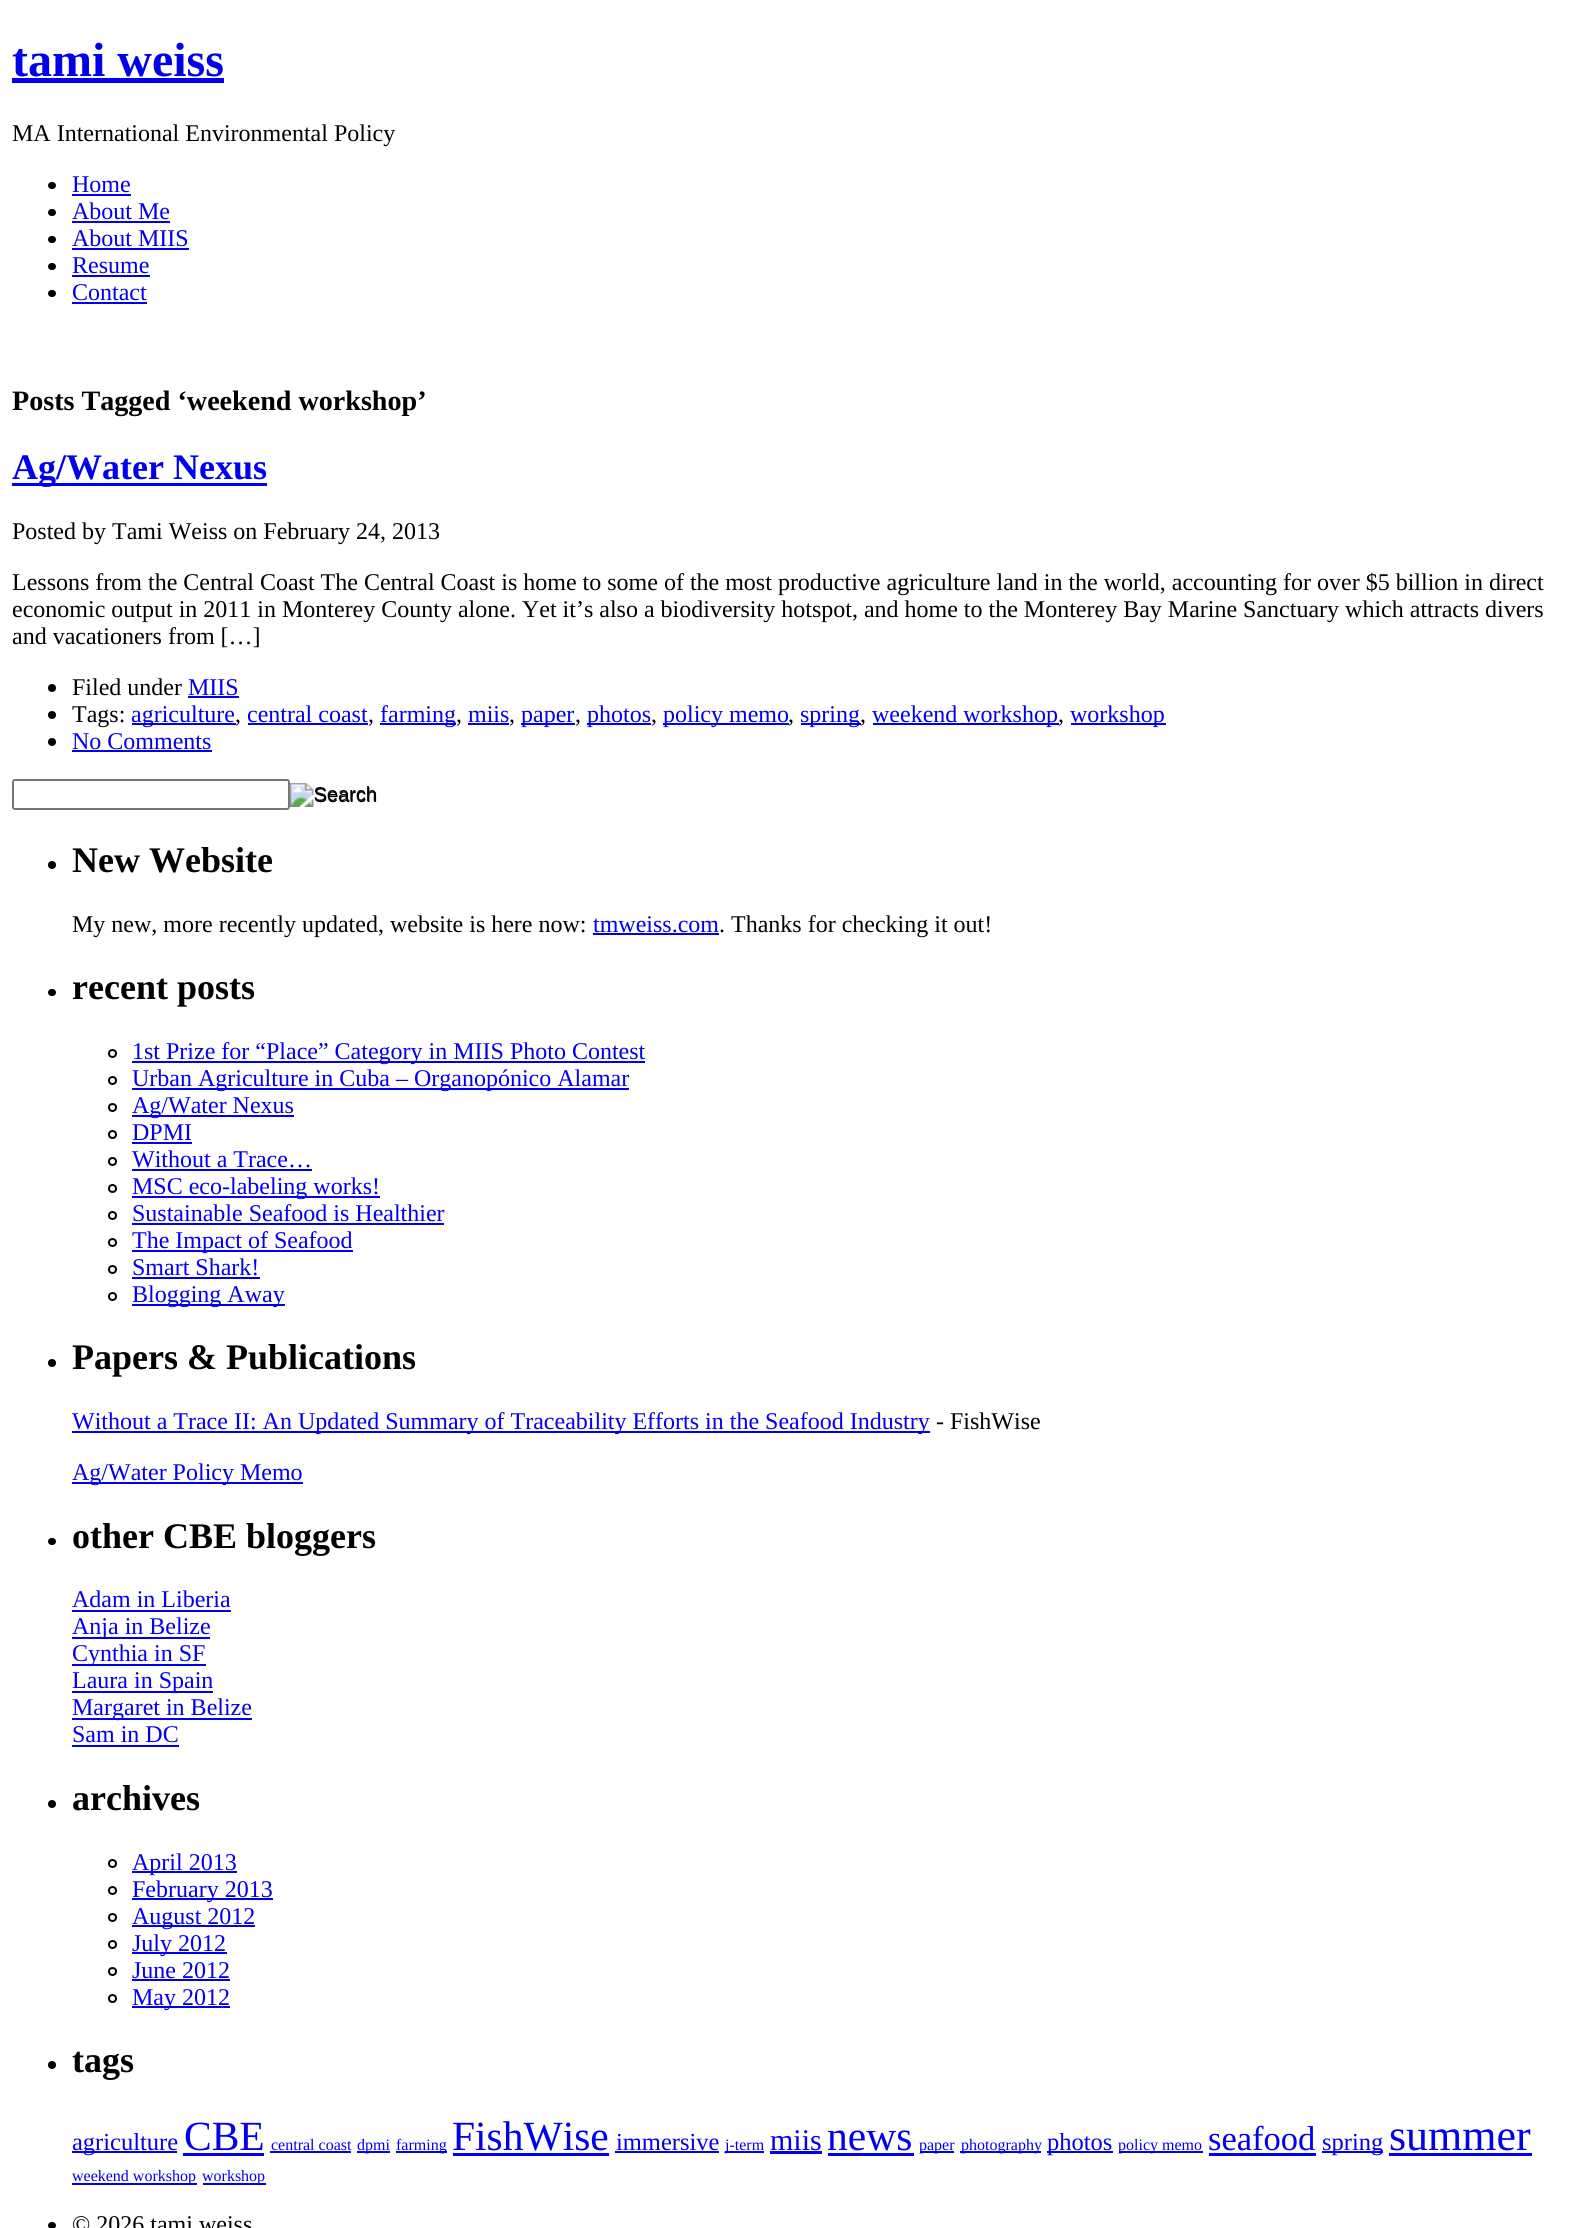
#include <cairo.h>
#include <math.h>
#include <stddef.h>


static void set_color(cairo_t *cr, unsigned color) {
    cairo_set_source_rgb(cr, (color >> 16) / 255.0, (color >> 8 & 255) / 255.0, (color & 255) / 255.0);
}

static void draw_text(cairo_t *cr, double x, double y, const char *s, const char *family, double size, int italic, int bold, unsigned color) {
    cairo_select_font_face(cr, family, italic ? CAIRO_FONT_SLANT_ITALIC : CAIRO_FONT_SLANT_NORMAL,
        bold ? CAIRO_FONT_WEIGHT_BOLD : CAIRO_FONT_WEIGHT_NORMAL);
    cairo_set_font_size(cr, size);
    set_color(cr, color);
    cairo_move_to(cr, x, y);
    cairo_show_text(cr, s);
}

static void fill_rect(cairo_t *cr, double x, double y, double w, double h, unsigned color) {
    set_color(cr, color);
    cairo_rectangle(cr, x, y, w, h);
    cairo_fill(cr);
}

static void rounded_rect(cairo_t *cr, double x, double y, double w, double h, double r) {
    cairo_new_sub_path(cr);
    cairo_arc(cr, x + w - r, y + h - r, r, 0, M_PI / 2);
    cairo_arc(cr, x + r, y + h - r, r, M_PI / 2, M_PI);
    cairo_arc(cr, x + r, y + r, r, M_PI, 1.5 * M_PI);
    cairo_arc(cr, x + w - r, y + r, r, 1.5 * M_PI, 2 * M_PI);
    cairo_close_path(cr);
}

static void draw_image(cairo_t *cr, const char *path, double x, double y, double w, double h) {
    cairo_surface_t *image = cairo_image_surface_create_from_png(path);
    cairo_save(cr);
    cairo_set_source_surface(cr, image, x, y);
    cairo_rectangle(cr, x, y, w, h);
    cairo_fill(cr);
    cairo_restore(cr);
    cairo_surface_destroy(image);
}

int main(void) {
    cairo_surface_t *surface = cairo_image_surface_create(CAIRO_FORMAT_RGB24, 1586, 2228);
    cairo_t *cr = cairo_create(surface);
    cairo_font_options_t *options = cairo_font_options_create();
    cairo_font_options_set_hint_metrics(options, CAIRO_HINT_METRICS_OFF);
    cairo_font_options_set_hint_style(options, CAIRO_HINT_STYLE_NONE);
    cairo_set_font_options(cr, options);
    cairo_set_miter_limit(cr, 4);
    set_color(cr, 0xFFFFFF);
    cairo_paint(cr);
    draw_text(cr, 12, 76, "tami weiss", "Liberation Serif", 48, 0, 1, 0x0000EE);
    fill_rect(cr, 12, 78, 212, 5, 0x0000EE);
    draw_text(cr, 12, 141, "MA International Environmental Policy", "Liberation Serif", 24, 0, 0, 0x000000);
    rounded_rect(cr, 48, 182, 8, 7, 3.5);
    cairo_fill(cr);
    draw_text(cr, 72, 192, "Home", "Liberation Serif", 24, 0, 0, 0x0000EE);
    fill_rect(cr, 72, 194, 59, 2, 0x0000EE);
    set_color(cr, 0x000000);
    rounded_rect(cr, 48, 209, 8, 7, 3.5);
    cairo_fill(cr);
    draw_text(cr, 72, 219, "About Me", "Liberation Serif", 24, 0, 0, 0x0000EE);
    fill_rect(cr, 72, 221, 98, 2, 0x0000EE);
    set_color(cr, 0x000000);
    rounded_rect(cr, 48, 236, 8, 7, 3.5);
    cairo_fill(cr);
    draw_text(cr, 72, 246, "About MIIS", "Liberation Serif", 24, 0, 0, 0x0000EE);
    fill_rect(cr, 72, 248, 117, 2, 0x0000EE);
    set_color(cr, 0x000000);
    rounded_rect(cr, 48, 263, 8, 7, 3.5);
    cairo_fill(cr);
    draw_text(cr, 72, 273, "Resume", "Liberation Serif", 24, 0, 0, 0x0000EE);
    fill_rect(cr, 72, 275, 78, 2, 0x0000EE);
    set_color(cr, 0x000000);
    rounded_rect(cr, 48, 290, 8, 7, 3.5);
    cairo_fill(cr);
    draw_text(cr, 72, 300, "Contact", "Liberation Serif", 24, 0, 0, 0x0000EE);
    fill_rect(cr, 72, 302, 75, 2, 0x0000EE);
    draw_text(cr, 12, 410, "Posts Tagged ‘weekend workshop’", "Liberation Serif", 28.1, 0, 1, 0x000000);
    fill_rect(cr, 12, 483, 255, 3, 0x0000EE);
    draw_text(cr, 12, 479, "Ag/Water Nexus", "Liberation Serif", 36, 0, 1, 0x0000EE);
    draw_text(cr, 12, 539, "Posted by Tami Weiss on February 24, 2013", "Liberation Serif", 24, 0, 0, 0x000000);
    draw_text(cr, 12, 590, "Lessons from the Central Coast The Central Coast is home to some of the most productive agriculture land in the world, accounting for over $5 billion in direct", "Liberation Serif", 24, 0, 0, 0x000000);
    draw_text(cr, 12, 617, "economic output in 2011 in Monterey County alone. Yet it’s also a biodiversity hotspot, and home to the Monterey Bay Marine Sanctuary which attracts divers", "Liberation Serif", 24, 0, 0, 0x000000);
    draw_text(cr, 12, 644, "and vacationers from […]", "Liberation Serif", 24, 0, 0, 0x000000);
    cairo_new_path(cr);
    cairo_arc(cr, 52, 688, 4, 0, 2 * M_PI);
    cairo_fill(cr);
    draw_text(cr, 72, 695, "Filed under", "Liberation Serif", 24, 0, 0, 0x000000);
    draw_text(cr, 188, 695, "MIIS", "Liberation Serif", 24, 0, 0, 0x0000EE);
    fill_rect(cr, 188, 696, 51, 2, 0x0000EE);
    set_color(cr, 0x000000);
    cairo_new_path(cr);
    cairo_arc(cr, 52, 715, 4, 0, 2 * M_PI);
    cairo_fill(cr);
    draw_text(cr, 72, 722, "Tags:", "Liberation Serif", 24, 0, 0, 0x000000);
    fill_rect(cr, 132, 723, 104, 2, 0x0000EE);
    draw_text(cr, 131, 722, "agriculture", "Liberation Serif", 24, 0, 0, 0x0000EE);
    draw_text(cr, 247, 722, "central coast", "Liberation Serif", 24, 0, 0, 0x0000EE);
    fill_rect(cr, 248, 723, 120, 2, 0x0000EE);
    fill_rect(cr, 380, 723, 76, 2, 0x0000EE);
    draw_text(cr, 380, 722, "farming", "Liberation Serif", 24, 0, 0, 0x0000EE);
    draw_text(cr, 468, 722, "miis", "Liberation Serif", 24, 0, 0, 0x0000EE);
    fill_rect(cr, 468, 723, 41, 2, 0x0000EE);
    fill_rect(cr, 521, 723, 54, 2, 0x0000EE);
    draw_text(cr, 521, 722, "paper", "Liberation Serif", 24, 0, 0, 0x0000EE);
    fill_rect(cr, 587, 723, 64, 2, 0x0000EE);
    draw_text(cr, 587, 722, "photos", "Liberation Serif", 24, 0, 0, 0x0000EE);
    fill_rect(cr, 663, 723, 126, 2, 0x0000EE);
    draw_text(cr, 663, 722, "policy memo", "Liberation Serif", 24, 0, 0, 0x0000EE);
    fill_rect(cr, 801, 723, 60, 2, 0x0000EE);
    draw_text(cr, 800, 722, "spring", "Liberation Serif", 24, 0, 0, 0x0000EE);
    fill_rect(cr, 873, 723, 186, 2, 0x0000EE);
    draw_text(cr, 872, 722, "weekend workshop", "Liberation Serif", 24, 0, 0, 0x0000EE);
    fill_rect(cr, 1071, 723, 95, 2, 0x0000EE);
    draw_text(cr, 1070, 722, "workshop", "Liberation Serif", 24, 0, 0, 0x0000EE);
    draw_text(cr, 235, 722, ",", "Liberation Serif", 24, 0, 0, 0x000000);
    draw_text(cr, 368, 722, ",", "Liberation Serif", 24, 0, 0, 0x000000);
    draw_text(cr, 456, 722, ",", "Liberation Serif", 24, 0, 0, 0x000000);
    draw_text(cr, 509, 722, ",", "Liberation Serif", 24, 0, 0, 0x000000);
    draw_text(cr, 575, 722, ",", "Liberation Serif", 24, 0, 0, 0x000000);
    draw_text(cr, 651, 722, ",", "Liberation Serif", 24, 0, 0, 0x000000);
    draw_text(cr, 788, 722, ",", "Liberation Serif", 24, 0, 0, 0x000000);
    draw_text(cr, 860, 722, ",", "Liberation Serif", 24, 0, 0, 0x000000);
    draw_text(cr, 1058, 722, ",", "Liberation Serif", 24, 0, 0, 0x000000);
    cairo_new_path(cr);
    cairo_arc(cr, 52, 742, 4, 0, 2 * M_PI);
    cairo_fill(cr);
    draw_text(cr, 72, 749, "No Comments", "Liberation Serif", 24, 0, 0, 0x0000EE);
    fill_rect(cr, 72, 750, 140, 2, 0x0000EE);
    rounded_rect(cr, 13, 780, 276, 29, 2);
    set_color(cr, 0x767676);
    cairo_stroke(cr);
    draw_image(cr, "assets/img1.png", 289, 783, 87, 24);
    draw_text(cr, 314, 802, "Search", "Liberation Sans", 20, 0, 0, 0x000000);
    cairo_new_path(cr);
    cairo_arc(cr, 52, 865, 4, 0, 2 * M_PI);
    cairo_fill(cr);
    draw_text(cr, 72, 872, "New Website", "Liberation Serif", 36, 0, 1, 0x000000);
    draw_text(cr, 72, 932, "My new, more recently updated, website is here now:", "Liberation Serif", 24, 0, 0, 0x000000);
    draw_text(cr, 593, 932, "tmweiss.com", "Liberation Serif", 24, 0, 0, 0x0000EE);
    fill_rect(cr, 593, 933, 126, 2, 0x0000EE);
    draw_text(cr, 719, 932, ". Thanks for checking it out!", "Liberation Serif", 24, 0, 0, 0x000000);
    rounded_rect(cr, 48, 989, 8, 7, 3.5);
    cairo_fill(cr);
    draw_text(cr, 72, 999, "recent posts", "Liberation Serif", 36, 0, 1, 0x000000);
    cairo_new_path(cr);
    cairo_arc(cr, 112.5, 1053.5, 3.5, 0, 2 * M_PI);
    cairo_stroke(cr);
    fill_rect(cr, 132, 1061, 513, 2, 0x0000EE);
    draw_text(cr, 132, 1059, "1st Prize for “Place” Category in MIIS Photo Contest", "Liberation Serif", 24, 0, 0, 0x0000EE);
    cairo_new_path(cr);
    cairo_arc(cr, 112.5, 1080.5, 3.5, 0, 2 * M_PI);
    set_color(cr, 0x000000);
    cairo_stroke(cr);
    fill_rect(cr, 132, 1088, 497, 2, 0x0000EE);
    draw_text(cr, 132, 1086, "Urban Agriculture in Cuba – Organopónico Alamar", "Liberation Serif", 24, 0, 0, 0x0000EE);
    cairo_new_path(cr);
    cairo_arc(cr, 112.5, 1107.5, 3.5, 0, 2 * M_PI);
    set_color(cr, 0x000000);
    cairo_stroke(cr);
    fill_rect(cr, 132, 1115, 162, 2, 0x0000EE);
    draw_text(cr, 132, 1113, "Ag/Water Nexus", "Liberation Serif", 24, 0, 0, 0x0000EE);
    cairo_new_path(cr);
    cairo_arc(cr, 112.5, 1134.5, 3.5, 0, 2 * M_PI);
    set_color(cr, 0x000000);
    cairo_stroke(cr);
    draw_text(cr, 132, 1140, "DPMI", "Liberation Serif", 24, 0, 0, 0x0000EE);
    fill_rect(cr, 132, 1142, 60, 2, 0x0000EE);
    cairo_new_path(cr);
    cairo_arc(cr, 112.5, 1161.5, 3.5, 0, 2 * M_PI);
    set_color(cr, 0x000000);
    cairo_stroke(cr);
    draw_text(cr, 132, 1167, "Without a Trace…", "Liberation Serif", 24, 0, 0, 0x0000EE);
    fill_rect(cr, 132, 1169, 180, 2, 0x0000EE);
    cairo_new_path(cr);
    cairo_arc(cr, 112.5, 1188.5, 3.5, 0, 2 * M_PI);
    set_color(cr, 0x000000);
    cairo_stroke(cr);
    fill_rect(cr, 132, 1196, 248, 2, 0x0000EE);
    draw_text(cr, 132, 1194, "MSC eco-labeling works!", "Liberation Serif", 24, 0, 0, 0x0000EE);
    cairo_new_path(cr);
    cairo_arc(cr, 112.5, 1215.5, 3.5, 0, 2 * M_PI);
    set_color(cr, 0x000000);
    cairo_stroke(cr);
    draw_text(cr, 132, 1221, "Sustainable Seafood is Healthier", "Liberation Serif", 24, 0, 0, 0x0000EE);
    fill_rect(cr, 132, 1223, 312, 2, 0x0000EE);
    cairo_new_path(cr);
    cairo_arc(cr, 112.5, 1242.5, 3.5, 0, 2 * M_PI);
    set_color(cr, 0x000000);
    cairo_stroke(cr);
    fill_rect(cr, 132, 1250, 221, 2, 0x0000EE);
    draw_text(cr, 132, 1248, "The Impact of Seafood", "Liberation Serif", 24, 0, 0, 0x0000EE);
    cairo_new_path(cr);
    cairo_arc(cr, 112.5, 1269.5, 3.5, 0, 2 * M_PI);
    set_color(cr, 0x000000);
    cairo_stroke(cr);
    draw_text(cr, 132, 1275, "Smart Shark!", "Liberation Serif", 24, 0, 0, 0x0000EE);
    fill_rect(cr, 132, 1277, 128, 2, 0x0000EE);
    cairo_new_path(cr);
    cairo_arc(cr, 112.5, 1296.5, 3.5, 0, 2 * M_PI);
    set_color(cr, 0x000000);
    cairo_stroke(cr);
    fill_rect(cr, 132, 1304, 153, 2, 0x0000EE);
    draw_text(cr, 132, 1302, "Blogging Away", "Liberation Serif", 24, 0, 0, 0x0000EE);
    set_color(cr, 0x000000);
    cairo_new_path(cr);
    cairo_arc(cr, 52, 1363, 4, 0, 2 * M_PI);
    cairo_fill(cr);
    draw_text(cr, 72, 1369, "Papers & Publications", "Liberation Serif", 36, 0, 1, 0x000000);
    fill_rect(cr, 72, 1431, 858, 2, 0x0000EE);
    draw_text(cr, 72, 1429, "Without a Trace II: An Updated Summary of Traceability Efforts in the Seafood Industry", "Liberation Serif", 24, 0, 0, 0x0000EE);
    draw_text(cr, 936, 1429, "- FishWise", "Liberation Serif", 24, 0, 0, 0x000000);
    fill_rect(cr, 72, 1482, 231, 2, 0x0000EE);
    draw_text(cr, 72, 1480, "Ag/Water Policy Memo", "Liberation Serif", 24, 0, 0, 0x0000EE);
    set_color(cr, 0x000000);
    rounded_rect(cr, 48, 1538, 8, 7, 3.5);
    cairo_fill(cr);
    draw_text(cr, 72, 1548, "other CBE bloggers", "Liberation Serif", 36, 0, 1, 0x000000);
    draw_text(cr, 72, 1607, "Adam in Liberia", "Liberation Serif", 24, 0, 0, 0x0000EE);
    fill_rect(cr, 72, 1610, 159, 2, 0x0000EE);
    fill_rect(cr, 72, 1637, 138, 2, 0x0000EE);
    draw_text(cr, 72, 1634, "Anja in Belize", "Liberation Serif", 24, 0, 0, 0x0000EE);
    fill_rect(cr, 72, 1664, 134, 2, 0x0000EE);
    draw_text(cr, 72, 1661, "Cynthia in SF", "Liberation Serif", 24, 0, 0, 0x0000EE);
    fill_rect(cr, 72, 1691, 141, 2, 0x0000EE);
    draw_text(cr, 72, 1688, "Laura in Spain", "Liberation Serif", 24, 0, 0, 0x0000EE);
    fill_rect(cr, 72, 1718, 180, 2, 0x0000EE);
    draw_text(cr, 72, 1715, "Margaret in Belize", "Liberation Serif", 24, 0, 0, 0x0000EE);
    draw_text(cr, 72, 1742, "Sam in DC", "Liberation Serif", 24, 0, 0, 0x0000EE);
    fill_rect(cr, 72, 1745, 107, 2, 0x0000EE);
    set_color(cr, 0x000000);
    cairo_new_path(cr);
    cairo_arc(cr, 52, 1804, 4, 0, 2 * M_PI);
    cairo_fill(cr);
    draw_text(cr, 72, 1810, "archives", "Liberation Serif", 36, 0, 1, 0x000000);
    cairo_new_path(cr);
    cairo_arc(cr, 112.5, 1863.5, 3.5, 0, 2 * M_PI);
    cairo_stroke(cr);
    fill_rect(cr, 132, 1871, 105, 2, 0x0000EE);
    draw_text(cr, 132, 1870, "April 2013", "Liberation Serif", 24, 0, 0, 0x0000EE);
    cairo_new_path(cr);
    cairo_arc(cr, 112.5, 1890.5, 3.5, 0, 2 * M_PI);
    set_color(cr, 0x000000);
    cairo_stroke(cr);
    fill_rect(cr, 132, 1898, 141, 2, 0x0000EE);
    draw_text(cr, 132, 1897, "February 2013", "Liberation Serif", 24, 0, 0, 0x0000EE);
    cairo_new_path(cr);
    cairo_arc(cr, 112.5, 1917.5, 3.5, 0, 2 * M_PI);
    set_color(cr, 0x000000);
    cairo_stroke(cr);
    fill_rect(cr, 132, 1925, 123, 2, 0x0000EE);
    draw_text(cr, 132, 1924, "August 2012", "Liberation Serif", 24, 0, 0, 0x0000EE);
    cairo_new_path(cr);
    cairo_arc(cr, 112.5, 1944.5, 3.5, 0, 2 * M_PI);
    set_color(cr, 0x000000);
    cairo_stroke(cr);
    fill_rect(cr, 132, 1952, 95, 2, 0x0000EE);
    draw_text(cr, 132, 1951, "July 2012", "Liberation Serif", 24, 0, 0, 0x0000EE);
    cairo_new_path(cr);
    cairo_arc(cr, 112.5, 1971.5, 3.5, 0, 2 * M_PI);
    set_color(cr, 0x000000);
    cairo_stroke(cr);
    draw_text(cr, 132, 1978, "June 2012", "Liberation Serif", 24, 0, 0, 0x0000EE);
    fill_rect(cr, 132, 1979, 98, 2, 0x0000EE);
    cairo_new_path(cr);
    cairo_arc(cr, 112.5, 1998.5, 3.5, 0, 2 * M_PI);
    set_color(cr, 0x000000);
    cairo_stroke(cr);
    fill_rect(cr, 132, 2006, 98, 2, 0x0000EE);
    draw_text(cr, 132, 2005, "May 2012", "Liberation Serif", 24, 0, 0, 0x0000EE);
    set_color(cr, 0x000000);
    cairo_new_path(cr);
    cairo_arc(cr, 52, 2065, 4, 0, 2 * M_PI);
    cairo_fill(cr);
    draw_text(cr, 72, 2072, "tags", "Liberation Serif", 36, 0, 1, 0x000000);
    fill_rect(cr, 72, 2151, 105, 2, 0x0000EE);
    draw_text(cr, 72, 2150, "agriculture", "Liberation Serif", 24.5, 0, 0, 0x0000EE);
    draw_text(cr, 184, 2150, "CBE", "Liberation Serif", 41.5, 0, 0, 0x0000EE);
    fill_rect(cr, 183, 2153, 81, 3, 0x0000EE);
    draw_text(cr, 271, 2150, "central coast", "Liberation Serif", 16, 0, 0, 0x0000EE);
    fill_rect(cr, 270, 2151, 81, 2, 0x0000EE);
    fill_rect(cr, 357, 2151, 33, 2, 0x0000EE);
    draw_text(cr, 357, 2150, "dpmi", "Liberation Serif", 16, 0, 0, 0x0000EE);
    fill_rect(cr, 396, 2151, 51, 2, 0x0000EE);
    draw_text(cr, 396, 2150, "farming", "Liberation Serif", 16, 0, 0, 0x0000EE);
    draw_text(cr, 452, 2150, "FishWise", "Liberation Serif", 41.5, 0, 0, 0x0000EE);
    fill_rect(cr, 453, 2153, 156, 3, 0x0000EE);
    draw_text(cr, 616, 2150, "immersive", "Liberation Serif", 24.5, 0, 0, 0x0000EE);
    fill_rect(cr, 615, 2151, 104, 2, 0x0000EE);
    fill_rect(cr, 725, 2151, 39, 2, 0x0000EE);
    draw_text(cr, 725, 2150, "j-term", "Liberation Serif", 16, 0, 0, 0x0000EE);
    draw_text(cr, 770, 2150, "miis", "Liberation Serif", 30, 0, 0, 0x0000EE);
    fill_rect(cr, 770, 2151, 52, 3, 0x0000EE);
    draw_text(cr, 827, 2150, "news", "Liberation Serif", 41.5, 0, 0, 0x0000EE);
    fill_rect(cr, 828, 2153, 86, 3, 0x0000EE);
    fill_rect(cr, 920, 2151, 34, 2, 0x0000EE);
    draw_text(cr, 919, 2150, "paper", "Liberation Serif", 16, 0, 0, 0x0000EE);
    fill_rect(cr, 960, 2151, 81, 2, 0x0000EE);
    draw_text(cr, 961, 2150, "photography", "Liberation Serif", 16, 0, 0, 0x0000EE);
    fill_rect(cr, 1047, 2151, 66, 2, 0x0000EE);
    draw_text(cr, 1047, 2150, "photos", "Liberation Serif", 24.5, 0, 0, 0x0000EE);
    fill_rect(cr, 1119, 2151, 84, 2, 0x0000EE);
    draw_text(cr, 1118, 2150, "policy memo", "Liberation Serif", 16, 0, 0, 0x0000EE);
    draw_text(cr, 1208, 2150, "seafood", "Liberation Serif", 34.5, 0, 0, 0x0000EE);
    fill_rect(cr, 1209, 2153, 107, 3, 0x0000EE);
    fill_rect(cr, 1322, 2151, 61, 2, 0x0000EE);
    draw_text(cr, 1322, 2150, "spring", "Liberation Serif", 24.5, 0, 0, 0x0000EE);
    draw_text(cr, 1389, 2150, "summer", "Liberation Serif", 44, 0, 0, 0x0000EE);
    fill_rect(cr, 1389, 2153, 143, 3, 0x0000EE);
    fill_rect(cr, 72, 2183, 125, 2, 0x0000EE);
    draw_text(cr, 72, 2181, "weekend workshop", "Liberation Serif", 16, 0, 0, 0x0000EE);
    fill_rect(cr, 203, 2183, 63, 2, 0x0000EE);
    draw_text(cr, 202, 2181, "workshop", "Liberation Serif", 16, 0, 0, 0x0000EE);
    set_color(cr, 0x000000);
    rounded_rect(cr, 48, 2222, 8, 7, 3.5);
    cairo_fill(cr);
    draw_text(cr, 72, 2232, "© 2026 tami weiss", "Liberation Serif", 24, 0, 0, 0x000000);
    cairo_surface_write_to_png(surface, "output.png");
    cairo_font_options_destroy(options);
    cairo_destroy(cr);
    cairo_surface_destroy(surface);
    return 0;
}
